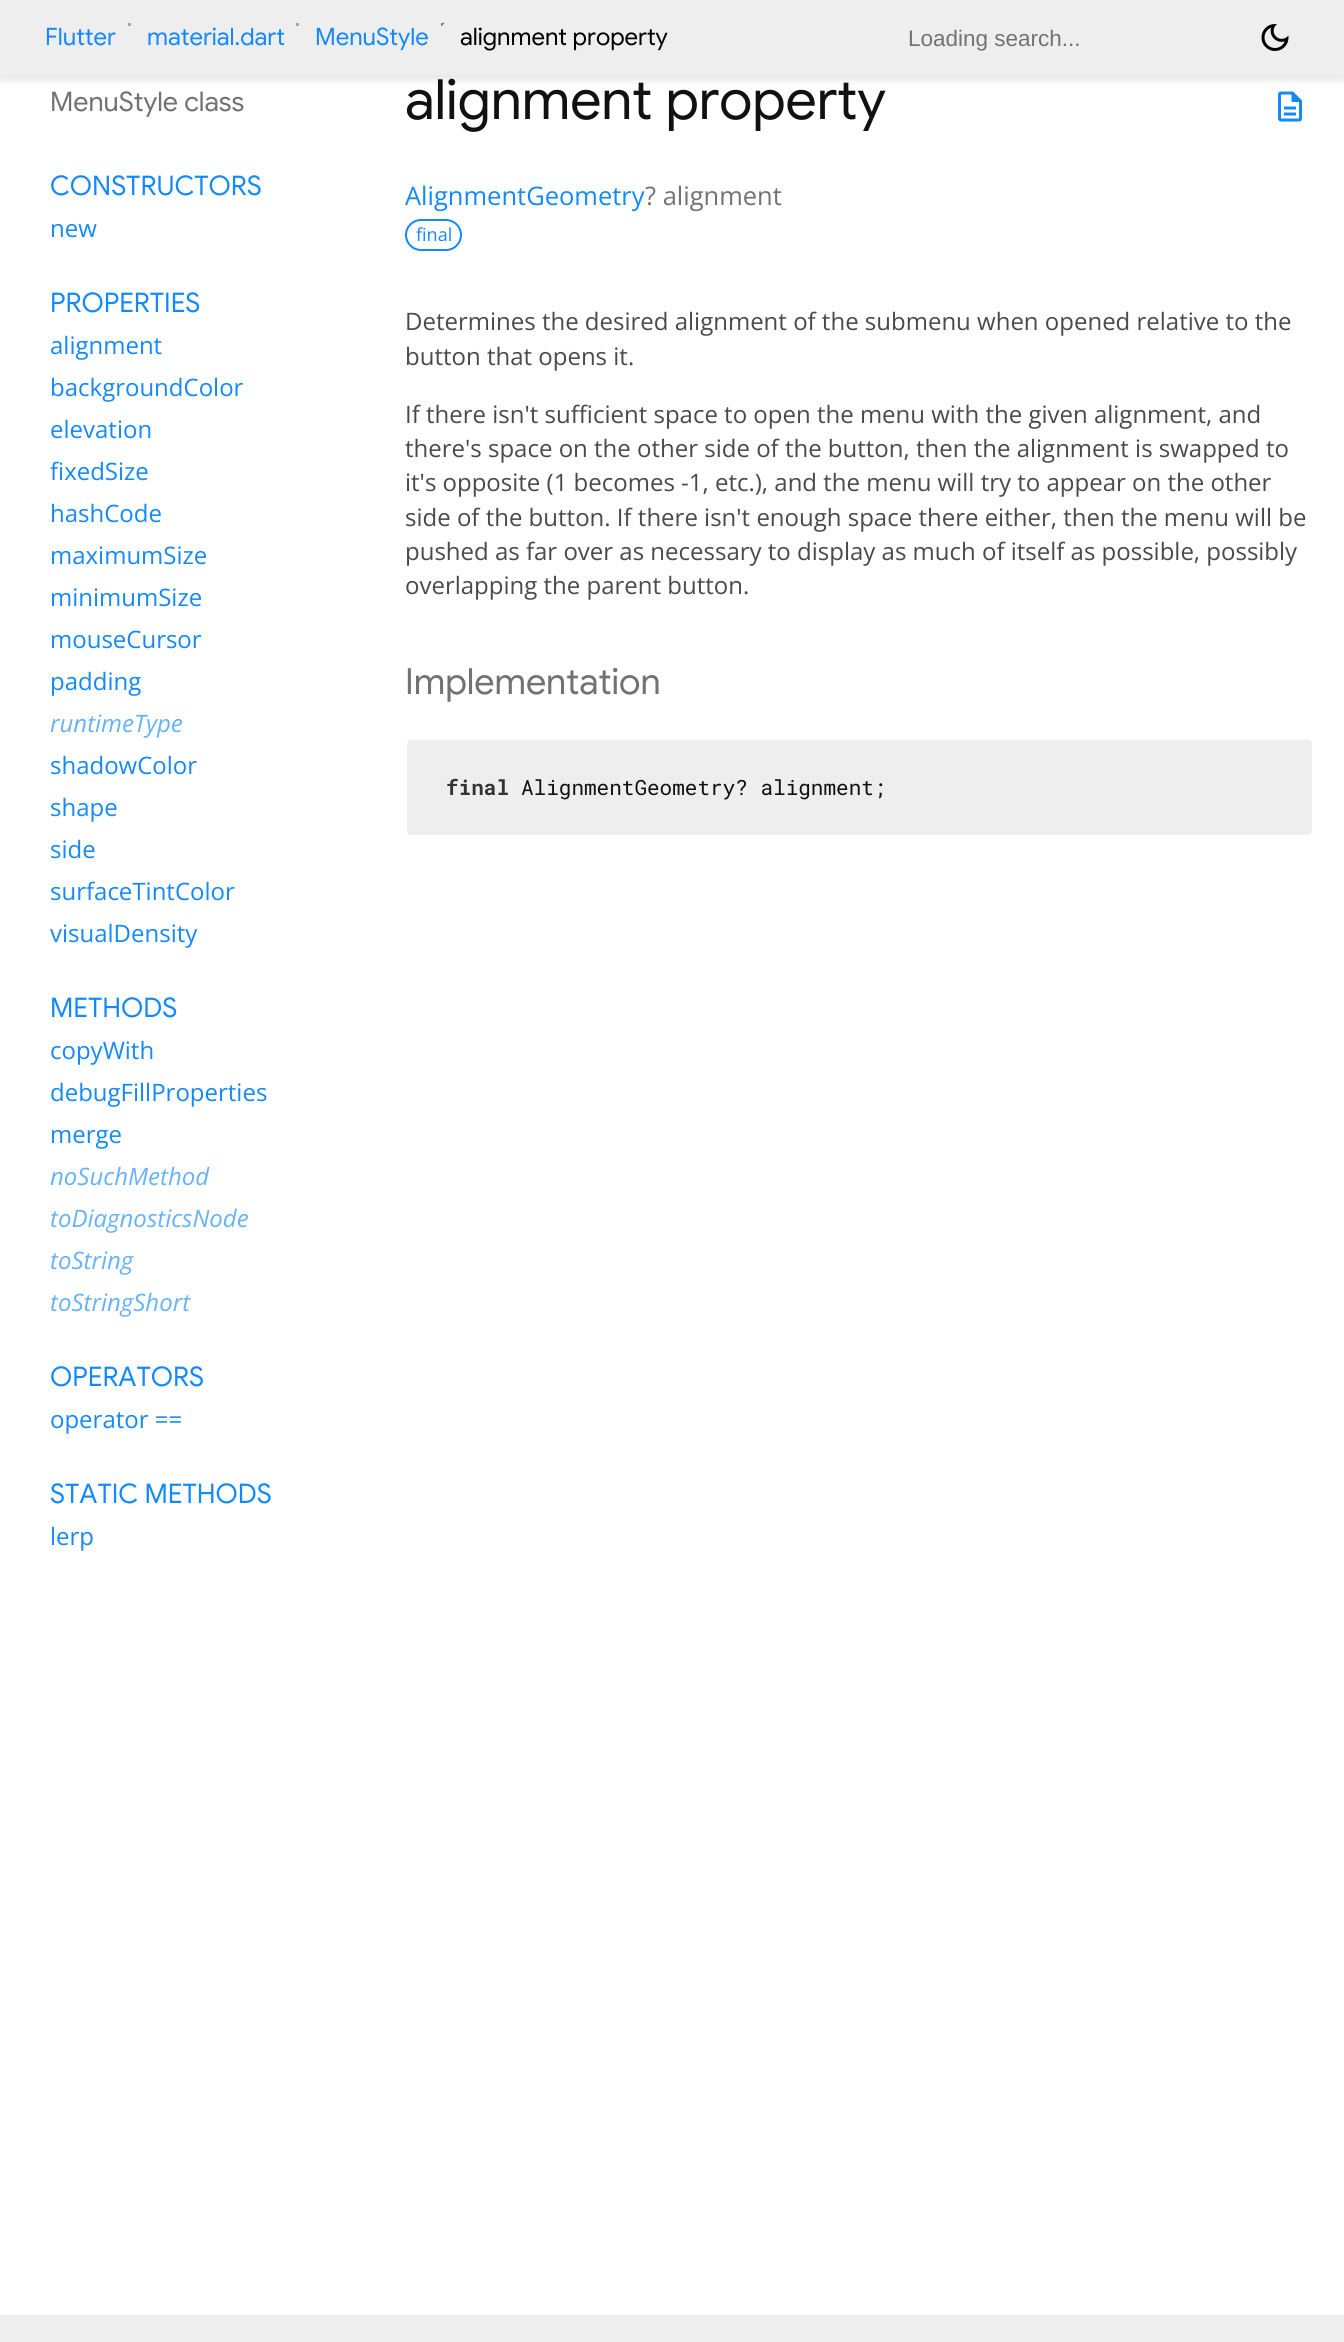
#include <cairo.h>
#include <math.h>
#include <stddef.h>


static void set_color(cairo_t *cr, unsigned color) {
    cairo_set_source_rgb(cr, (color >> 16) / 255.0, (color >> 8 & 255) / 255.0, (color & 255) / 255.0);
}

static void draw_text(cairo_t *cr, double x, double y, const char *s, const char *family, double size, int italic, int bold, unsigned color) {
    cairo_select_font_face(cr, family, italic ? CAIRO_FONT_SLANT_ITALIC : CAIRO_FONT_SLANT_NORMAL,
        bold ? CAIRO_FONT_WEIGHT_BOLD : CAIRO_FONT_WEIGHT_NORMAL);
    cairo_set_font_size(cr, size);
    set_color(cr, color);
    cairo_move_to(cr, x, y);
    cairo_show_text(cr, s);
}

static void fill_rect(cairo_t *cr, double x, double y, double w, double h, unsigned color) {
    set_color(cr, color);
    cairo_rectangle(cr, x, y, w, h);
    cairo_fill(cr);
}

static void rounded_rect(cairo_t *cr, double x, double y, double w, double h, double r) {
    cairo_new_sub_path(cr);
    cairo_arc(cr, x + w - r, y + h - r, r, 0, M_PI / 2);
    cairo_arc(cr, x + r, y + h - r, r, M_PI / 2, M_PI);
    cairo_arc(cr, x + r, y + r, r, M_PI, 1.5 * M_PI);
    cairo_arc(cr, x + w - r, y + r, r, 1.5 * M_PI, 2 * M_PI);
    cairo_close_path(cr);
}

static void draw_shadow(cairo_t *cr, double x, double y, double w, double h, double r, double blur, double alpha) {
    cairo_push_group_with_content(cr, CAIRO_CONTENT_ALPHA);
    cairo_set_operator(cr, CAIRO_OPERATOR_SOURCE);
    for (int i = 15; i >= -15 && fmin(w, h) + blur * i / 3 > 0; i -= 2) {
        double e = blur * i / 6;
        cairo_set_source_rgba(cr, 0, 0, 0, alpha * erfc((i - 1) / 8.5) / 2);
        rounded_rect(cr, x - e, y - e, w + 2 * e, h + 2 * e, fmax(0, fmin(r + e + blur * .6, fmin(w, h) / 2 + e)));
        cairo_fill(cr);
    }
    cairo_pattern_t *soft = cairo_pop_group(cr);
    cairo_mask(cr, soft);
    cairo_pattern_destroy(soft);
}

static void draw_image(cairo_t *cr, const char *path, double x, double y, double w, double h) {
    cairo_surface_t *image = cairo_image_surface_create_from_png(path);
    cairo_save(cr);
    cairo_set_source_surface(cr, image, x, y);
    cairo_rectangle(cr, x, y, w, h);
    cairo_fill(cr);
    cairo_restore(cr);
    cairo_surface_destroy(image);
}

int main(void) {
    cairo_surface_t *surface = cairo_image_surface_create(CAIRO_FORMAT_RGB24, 1344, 2342);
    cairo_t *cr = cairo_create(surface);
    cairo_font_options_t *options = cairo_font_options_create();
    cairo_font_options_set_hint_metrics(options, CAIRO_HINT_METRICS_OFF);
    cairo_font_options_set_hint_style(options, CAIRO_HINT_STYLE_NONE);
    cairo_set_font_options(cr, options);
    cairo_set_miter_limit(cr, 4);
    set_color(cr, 0xFFFFFF);
    cairo_paint(cr);
    draw_image(cr, "assets/img3.png", 1278, 91, 24, 31);
    set_color(cr, 0x000000);
    draw_shadow(cr, 0, 5, 1344, 75, 0, 4, 0.1);
    fill_rect(cr, 0, 0, 1344, 75, 0xEEEEEE);
    draw_text(cr, 45, 45, "Flutter", "Google Sans", 24, 0, 0, 0x1389FD);
    fill_rect(cr, 128, 23, 3, 3, 0xA9A9A9);
    draw_text(cr, 147, 45, "material.dart", "Google Sans", 24, 0, 0, 0x1389FD);
    fill_rect(cr, 296, 23, 3, 3, 0xA9A9A9);
    draw_text(cr, 315, 45, "MenuStyle", "Google Sans", 24, 0, 0, 0x1389FD);
    draw_image(cr, "assets/img1.png", 441, 23, 4, 4);
    draw_text(cr, 460, 45, "alignment property", "Google Sans", 24, 0, 0, 0x000000);
    draw_text(cr, 908, 46, "Loading search...", "Liberation Sans", 22.5, 0, 0, 0x727272);
    draw_image(cr, "assets/img2.png", 1261, 24, 28, 27);
    draw_text(cr, 50, 111, "MenuStyle class", "Google Sans", 27, 0, 0, 0x727272);
    draw_text(cr, 50, 195, "CONSTRUCTORS", "Google Sans", 27, 0, 0, 0x1389FD);
    draw_text(cr, 50, 237, "new", "Open Sans", 24, 0, 0, 0x1389FD);
    draw_text(cr, 50, 312, "PROPERTIES", "Google Sans", 27, 0, 0, 0x1389FD);
    draw_text(cr, 50, 354, "alignment", "Open Sans", 24, 0, 0, 0x1389FD);
    draw_text(cr, 50, 396, "backgroundColor", "Open Sans", 24, 0, 0, 0x1389FD);
    draw_text(cr, 50, 438, "elevation", "Open Sans", 24, 0, 0, 0x1389FD);
    draw_text(cr, 50, 480, "fixedSize", "Open Sans", 24, 0, 0, 0x1389FD);
    draw_text(cr, 50, 522, "hashCode", "Open Sans", 24, 0, 0, 0x1389FD);
    draw_text(cr, 50, 564, "maximumSize", "Open Sans", 24, 0, 0, 0x1389FD);
    draw_text(cr, 50, 606, "minimumSize", "Open Sans", 24, 0, 0, 0x1389FD);
    draw_text(cr, 50, 648, "mouseCursor", "Open Sans", 24, 0, 0, 0x1389FD);
    draw_text(cr, 50, 690, "padding", "Open Sans", 24, 0, 0, 0x1389FD);
    draw_text(cr, 50, 732, "runtimeType", "Open Sans", 24, 1, 0, 0x66B2FE);
    draw_text(cr, 50, 774, "shadowColor", "Open Sans", 24, 0, 0, 0x1389FD);
    draw_text(cr, 50, 816, "shape", "Open Sans", 24, 0, 0, 0x1389FD);
    draw_text(cr, 50, 858, "side", "Open Sans", 24, 0, 0, 0x1389FD);
    draw_text(cr, 50, 900, "surfaceTintColor", "Open Sans", 24, 0, 0, 0x1389FD);
    draw_text(cr, 50, 942, "visualDensity", "Open Sans", 24, 0, 0, 0x1389FD);
    draw_text(cr, 50, 1017, "METHODS", "Google Sans", 27, 0, 0, 0x1389FD);
    draw_text(cr, 50, 1059, "copyWith", "Open Sans", 24, 0, 0, 0x1389FD);
    draw_text(cr, 50, 1101, "debugFillProperties", "Open Sans", 24, 0, 0, 0x1389FD);
    draw_text(cr, 50, 1143, "merge", "Open Sans", 24, 0, 0, 0x1389FD);
    draw_text(cr, 50, 1185, "noSuchMethod", "Open Sans", 24, 1, 0, 0x66B2FE);
    draw_text(cr, 50, 1227, "toDiagnosticsNode", "Open Sans", 24, 1, 0, 0x66B2FE);
    draw_text(cr, 50, 1269, "toString", "Open Sans", 24, 1, 0, 0x66B2FE);
    draw_text(cr, 50, 1311, "toStringShort", "Open Sans", 24, 1, 0, 0x66B2FE);
    draw_text(cr, 50, 1386, "OPERATORS", "Google Sans", 27, 0, 0, 0x1389FD);
    draw_text(cr, 50, 1428, "operator ==", "Open Sans", 24, 0, 0, 0x1389FD);
    draw_text(cr, 50, 1503, "STATIC METHODS", "Google Sans", 27, 0, 0, 0x1389FD);
    draw_text(cr, 50, 1545, "lerp", "Open Sans", 24, 0, 0, 0x1389FD);
    draw_text(cr, 405, 119, "alignment property", "Google Sans", 55.5, 0, 0, 0x111111);
    draw_text(cr, 405, 205, "AlignmentGeometry", "Open Sans", 25.5, 0, 0, 0x1389FD);
    draw_text(cr, 645, 205, "? alignment", "Open Sans", 25.5, 0, 0, 0x727272);
    rounded_rect(cr, 406, 220, 55, 30, 15);
    set_color(cr, 0x1389FD);
    cairo_stroke(cr);
    draw_text(cr, 416, 241, "final", "Open Sans", 18, 0, 0, 0x1389FD);
    draw_text(cr, 405, 330, "Determines the desired alignment of the submenu when opened relative to the", "Open Sans", 24, 0, 0, 0x4A4A4A);
    draw_text(cr, 405, 365, "button that opens it.", "Open Sans", 24, 0, 0, 0x4A4A4A);
    draw_text(cr, 405, 423, "If there isn't sufficient space to open the menu with the given alignment, and", "Open Sans", 24, 0, 0, 0x4A4A4A);
    draw_text(cr, 405, 457, "there's space on the other side of the button, then the alignment is swapped to", "Open Sans", 24, 0, 0, 0x4A4A4A);
    draw_text(cr, 405, 491, "it's opposite (1 becomes -1, etc.), and the menu will try to appear on the other", "Open Sans", 24, 0, 0, 0x4A4A4A);
    draw_text(cr, 405, 526, "side of the button. If there isn't enough space there either, then the menu will be", "Open Sans", 24, 0, 0, 0x4A4A4A);
    draw_text(cr, 405, 560, "pushed as far over as necessary to display as much of itself as possible, possibly", "Open Sans", 24, 0, 0, 0x4A4A4A);
    draw_text(cr, 405, 594, "overlapping the parent button.", "Open Sans", 24, 0, 0, 0x4A4A4A);
    draw_text(cr, 405, 694, "Implementation", "Google Sans", 36, 0, 0, 0x727272);
    set_color(cr, 0xEEEEEE);
    rounded_rect(cr, 406, 739, 907, 97, 5);
    cairo_fill_preserve(cr);
    set_color(cr, 0xFFFFFF);
    cairo_stroke(cr);
    draw_text(cr, 446, 795, "final", "Roboto Mono", 21, 0, 1, 0x333333);
    draw_text(cr, 521, 795, "AlignmentGeometry? alignment;", "Roboto Mono", 21, 0, 0, 0x111111);
    fill_rect(cr, 0, 2315, 1344, 27, 0xEEEEEE);
    cairo_surface_write_to_png(surface, "output.png");
    cairo_font_options_destroy(options);
    cairo_destroy(cr);
    cairo_surface_destroy(surface);
    return 0;
}
